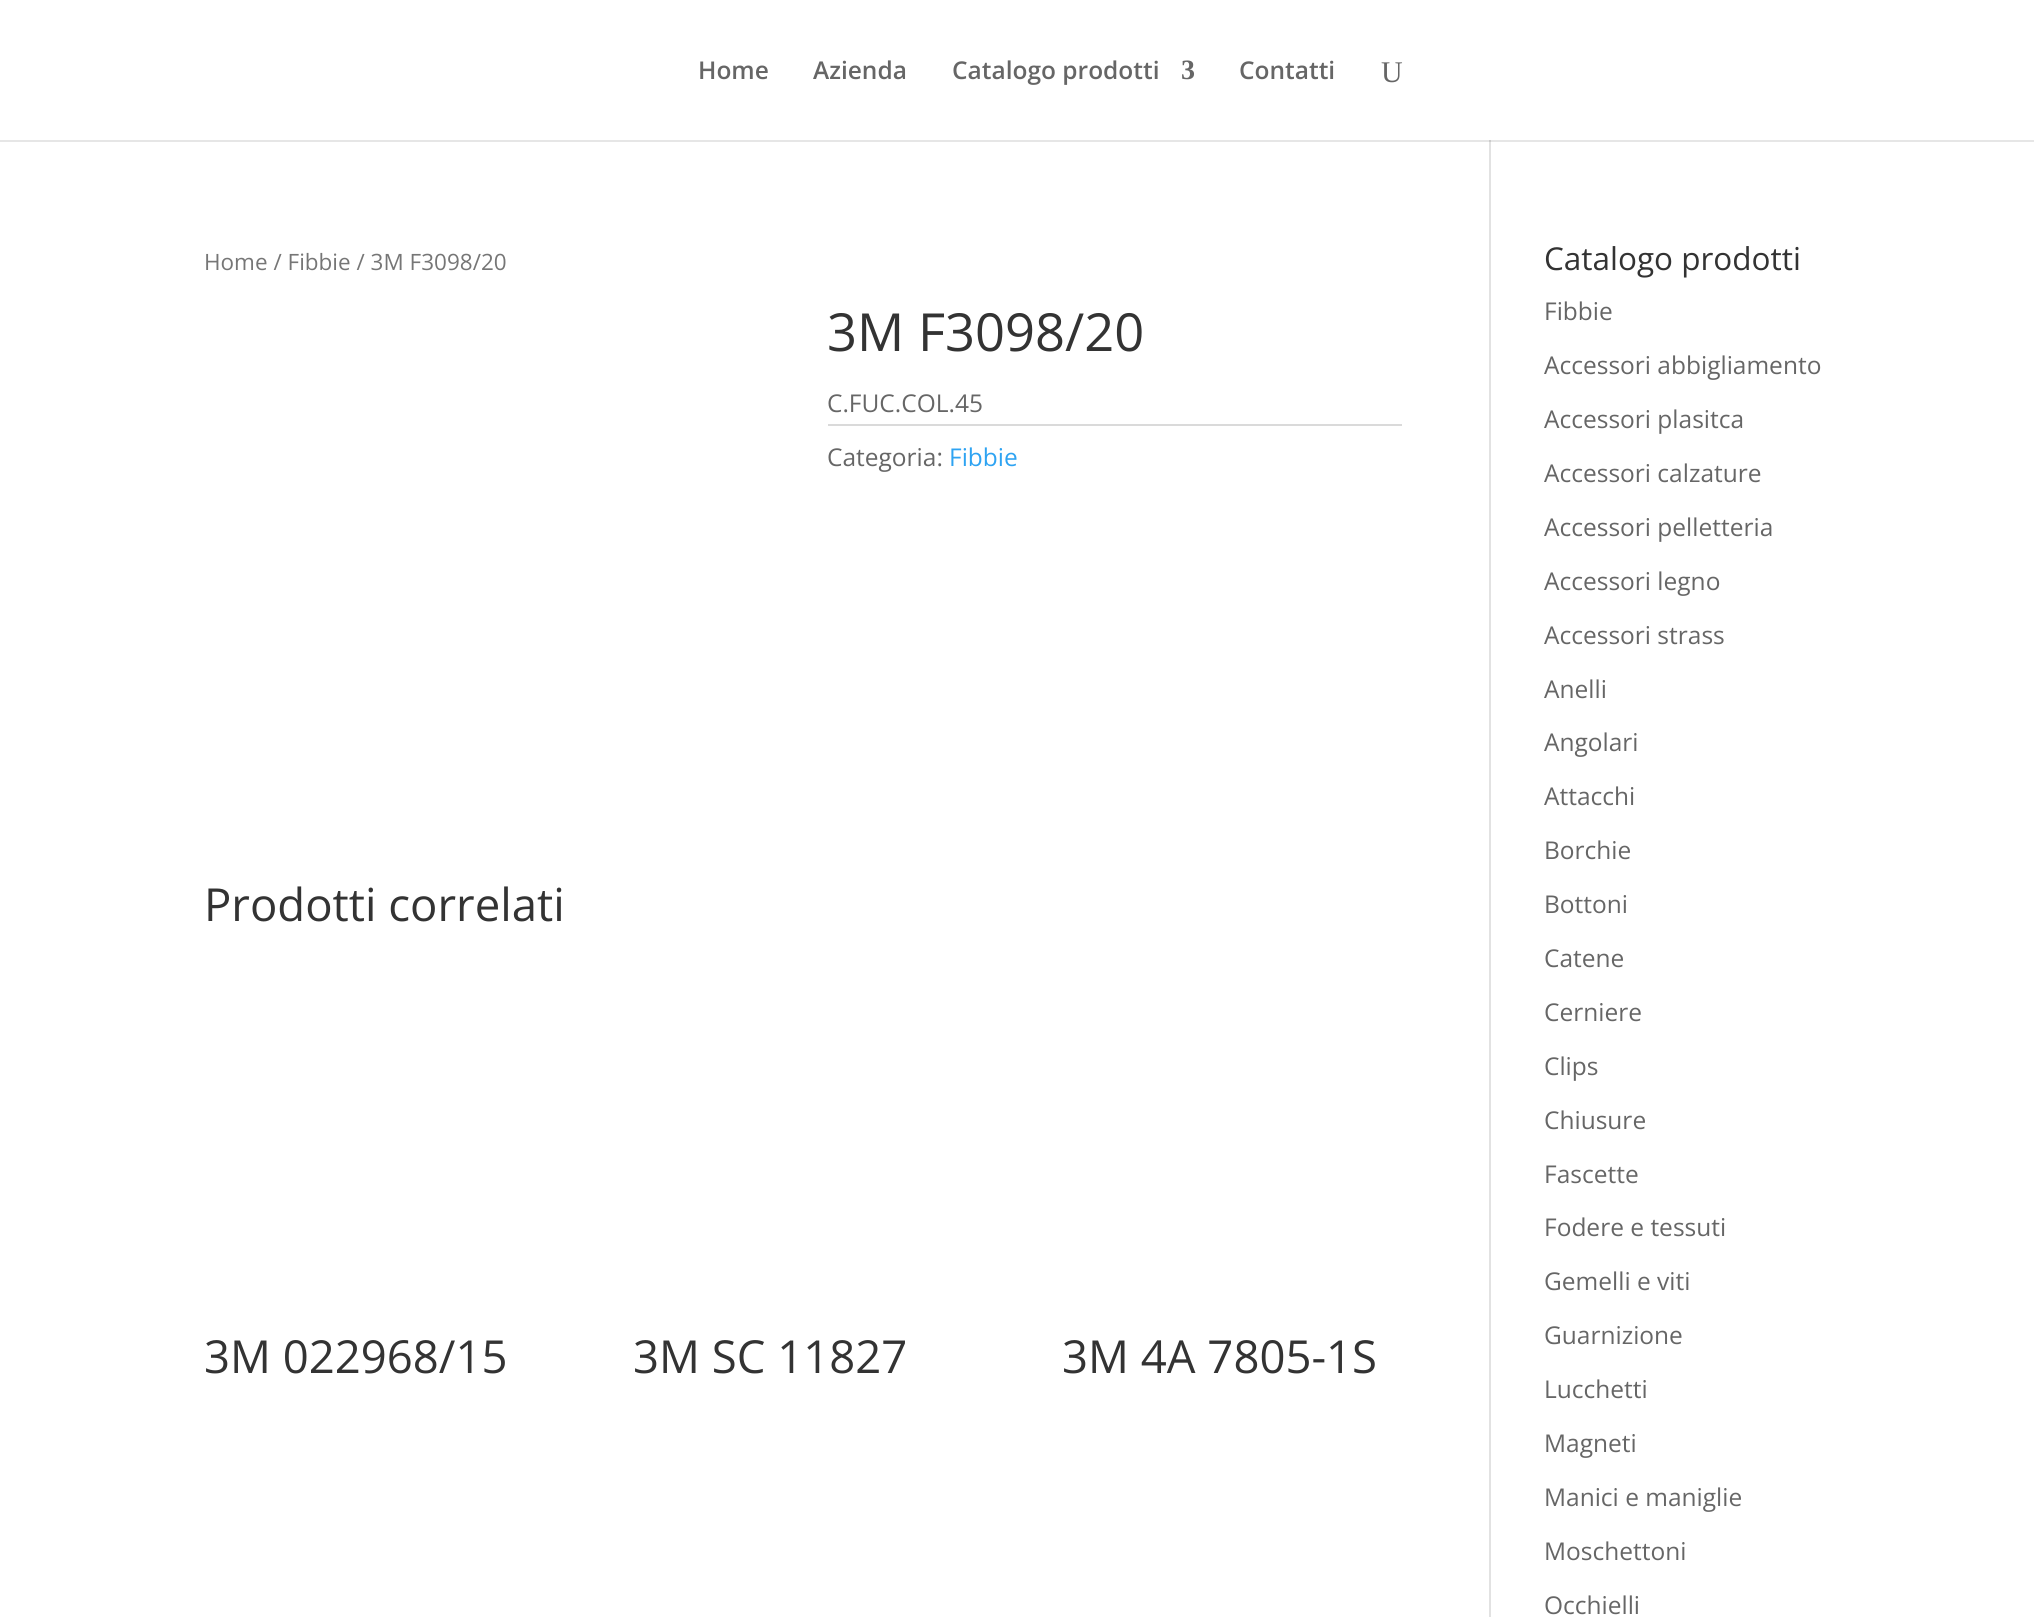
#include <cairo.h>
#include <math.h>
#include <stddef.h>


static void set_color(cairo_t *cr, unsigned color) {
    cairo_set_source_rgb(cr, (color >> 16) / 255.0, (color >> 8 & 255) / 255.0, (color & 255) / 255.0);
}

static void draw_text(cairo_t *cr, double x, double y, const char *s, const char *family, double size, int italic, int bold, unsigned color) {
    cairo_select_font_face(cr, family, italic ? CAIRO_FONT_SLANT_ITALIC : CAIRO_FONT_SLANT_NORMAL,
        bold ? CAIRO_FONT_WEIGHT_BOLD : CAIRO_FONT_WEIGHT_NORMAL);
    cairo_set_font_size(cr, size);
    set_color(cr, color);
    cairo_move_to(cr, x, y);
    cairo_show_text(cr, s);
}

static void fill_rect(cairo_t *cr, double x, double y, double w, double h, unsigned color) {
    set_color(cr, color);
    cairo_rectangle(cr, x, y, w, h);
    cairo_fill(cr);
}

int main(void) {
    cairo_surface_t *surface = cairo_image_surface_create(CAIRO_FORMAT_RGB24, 2034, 1617);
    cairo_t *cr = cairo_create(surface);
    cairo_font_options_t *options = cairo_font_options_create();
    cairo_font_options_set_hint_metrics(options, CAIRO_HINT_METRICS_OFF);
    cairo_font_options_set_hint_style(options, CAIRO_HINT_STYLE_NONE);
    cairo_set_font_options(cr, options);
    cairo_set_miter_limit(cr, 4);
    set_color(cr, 0xFFFFFF);
    cairo_paint(cr);
    fill_rect(cr, 0, 140, 2034, 2, 0xE6E6E6);
    draw_text(cr, 698, 79, "Home", "Open Sans SemiBold", 24.5, 0, 0, 0x666666);
    draw_text(cr, 813, 79, "Azienda", "Open Sans SemiBold", 24.5, 0, 0, 0x666666);
    draw_text(cr, 952, 79, "Catalogo prodotti", "Open Sans SemiBold", 24.5, 0, 0, 0x666666);
    draw_text(cr, 1181, 79, "3", "Liberation Serif", 28, 0, 1, 0x666666);
    draw_text(cr, 1239, 79, "Contatti", "Open Sans SemiBold", 24.5, 0, 0, 0x666666);
    draw_text(cr, 1381, 82, "U", "Liberation Serif", 30, 0, 0, 0x666666);
    fill_rect(cr, 1489, 140, 2, 1477, 0xE2E2E2);
    fill_rect(cr, 1489, 140, 2, 2, 0xCBCBCB);
    draw_text(cr, 204, 270, "Home / Fibbie / 3M F3098/20", "Open Sans", 22.5, 0, 0, 0x767676);
    draw_text(cr, 827, 351, "3M F3098/20", "Open Sans", 52.5, 0, 0, 0x333333);
    draw_text(cr, 827, 412, "C.FUC.COL.45", "Open Sans", 24.5, 0, 0, 0x666666);
    fill_rect(cr, 828, 424, 574, 2, 0xDADADA);
    draw_text(cr, 827, 466, "Categoria:", "Open Sans", 24.5, 0, 0, 0x666666);
    draw_text(cr, 949, 466, "Fibbie", "Open Sans", 24.5, 0, 0, 0x2EA3F2);
    draw_text(cr, 204, 921, "Prodotti correlati", "Open Sans", 45.5, 0, 0, 0x333333);
    draw_text(cr, 204, 1373, "3M 022968/15", "Open Sans", 45.5, 0, 0, 0x333333);
    draw_text(cr, 633, 1373, "3M SC 11827", "Open Sans", 45.5, 0, 0, 0x333333);
    draw_text(cr, 1062, 1373, "3M 4A 7805-1S", "Open Sans", 45.5, 0, 0, 0x333333);
    draw_text(cr, 1544, 270, "Catalogo prodotti", "Open Sans", 31.5, 0, 0, 0x333333);
    draw_text(cr, 1544, 320, "Fibbie", "Open Sans", 24.5, 0, 0, 0x666666);
    draw_text(cr, 1544, 374, "Accessori abbigliamento", "Open Sans", 24.5, 0, 0, 0x666666);
    draw_text(cr, 1544, 428, "Accessori plasitca", "Open Sans", 24.5, 0, 0, 0x666666);
    draw_text(cr, 1544, 482, "Accessori calzature", "Open Sans", 24.5, 0, 0, 0x666666);
    draw_text(cr, 1544, 536, "Accessori pelletteria", "Open Sans", 24.5, 0, 0, 0x666666);
    draw_text(cr, 1544, 590, "Accessori legno", "Open Sans", 24.5, 0, 0, 0x666666);
    draw_text(cr, 1544, 644, "Accessori strass", "Open Sans", 24.5, 0, 0, 0x666666);
    draw_text(cr, 1544, 698, "Anelli", "Open Sans", 24.5, 0, 0, 0x666666);
    draw_text(cr, 1544, 751, "Angolari", "Open Sans", 24.5, 0, 0, 0x666666);
    draw_text(cr, 1544, 805, "Attacchi", "Open Sans", 24.5, 0, 0, 0x666666);
    draw_text(cr, 1544, 859, "Borchie", "Open Sans", 24.5, 0, 0, 0x666666);
    draw_text(cr, 1544, 913, "Bottoni", "Open Sans", 24.5, 0, 0, 0x666666);
    draw_text(cr, 1544, 967, "Catene", "Open Sans", 24.5, 0, 0, 0x666666);
    draw_text(cr, 1544, 1021, "Cerniere", "Open Sans", 24.5, 0, 0, 0x666666);
    draw_text(cr, 1544, 1075, "Clips", "Open Sans", 24.5, 0, 0, 0x666666);
    draw_text(cr, 1544, 1129, "Chiusure", "Open Sans", 24.5, 0, 0, 0x666666);
    draw_text(cr, 1544, 1183, "Fascette", "Open Sans", 24.5, 0, 0, 0x666666);
    draw_text(cr, 1544, 1236, "Fodere e tessuti", "Open Sans", 24.5, 0, 0, 0x666666);
    draw_text(cr, 1544, 1290, "Gemelli e viti", "Open Sans", 24.5, 0, 0, 0x666666);
    draw_text(cr, 1544, 1344, "Guarnizione", "Open Sans", 24.5, 0, 0, 0x666666);
    draw_text(cr, 1544, 1398, "Lucchetti", "Open Sans", 24.5, 0, 0, 0x666666);
    draw_text(cr, 1544, 1452, "Magneti", "Open Sans", 24.5, 0, 0, 0x666666);
    draw_text(cr, 1544, 1506, "Manici e maniglie", "Open Sans", 24.5, 0, 0, 0x666666);
    draw_text(cr, 1544, 1560, "Moschettoni", "Open Sans", 24.5, 0, 0, 0x666666);
    draw_text(cr, 1544, 1614, "Occhielli", "Open Sans", 24.5, 0, 0, 0x666666);
    cairo_surface_write_to_png(surface, "output.png");
    cairo_font_options_destroy(options);
    cairo_destroy(cr);
    cairo_surface_destroy(surface);
    return 0;
}
